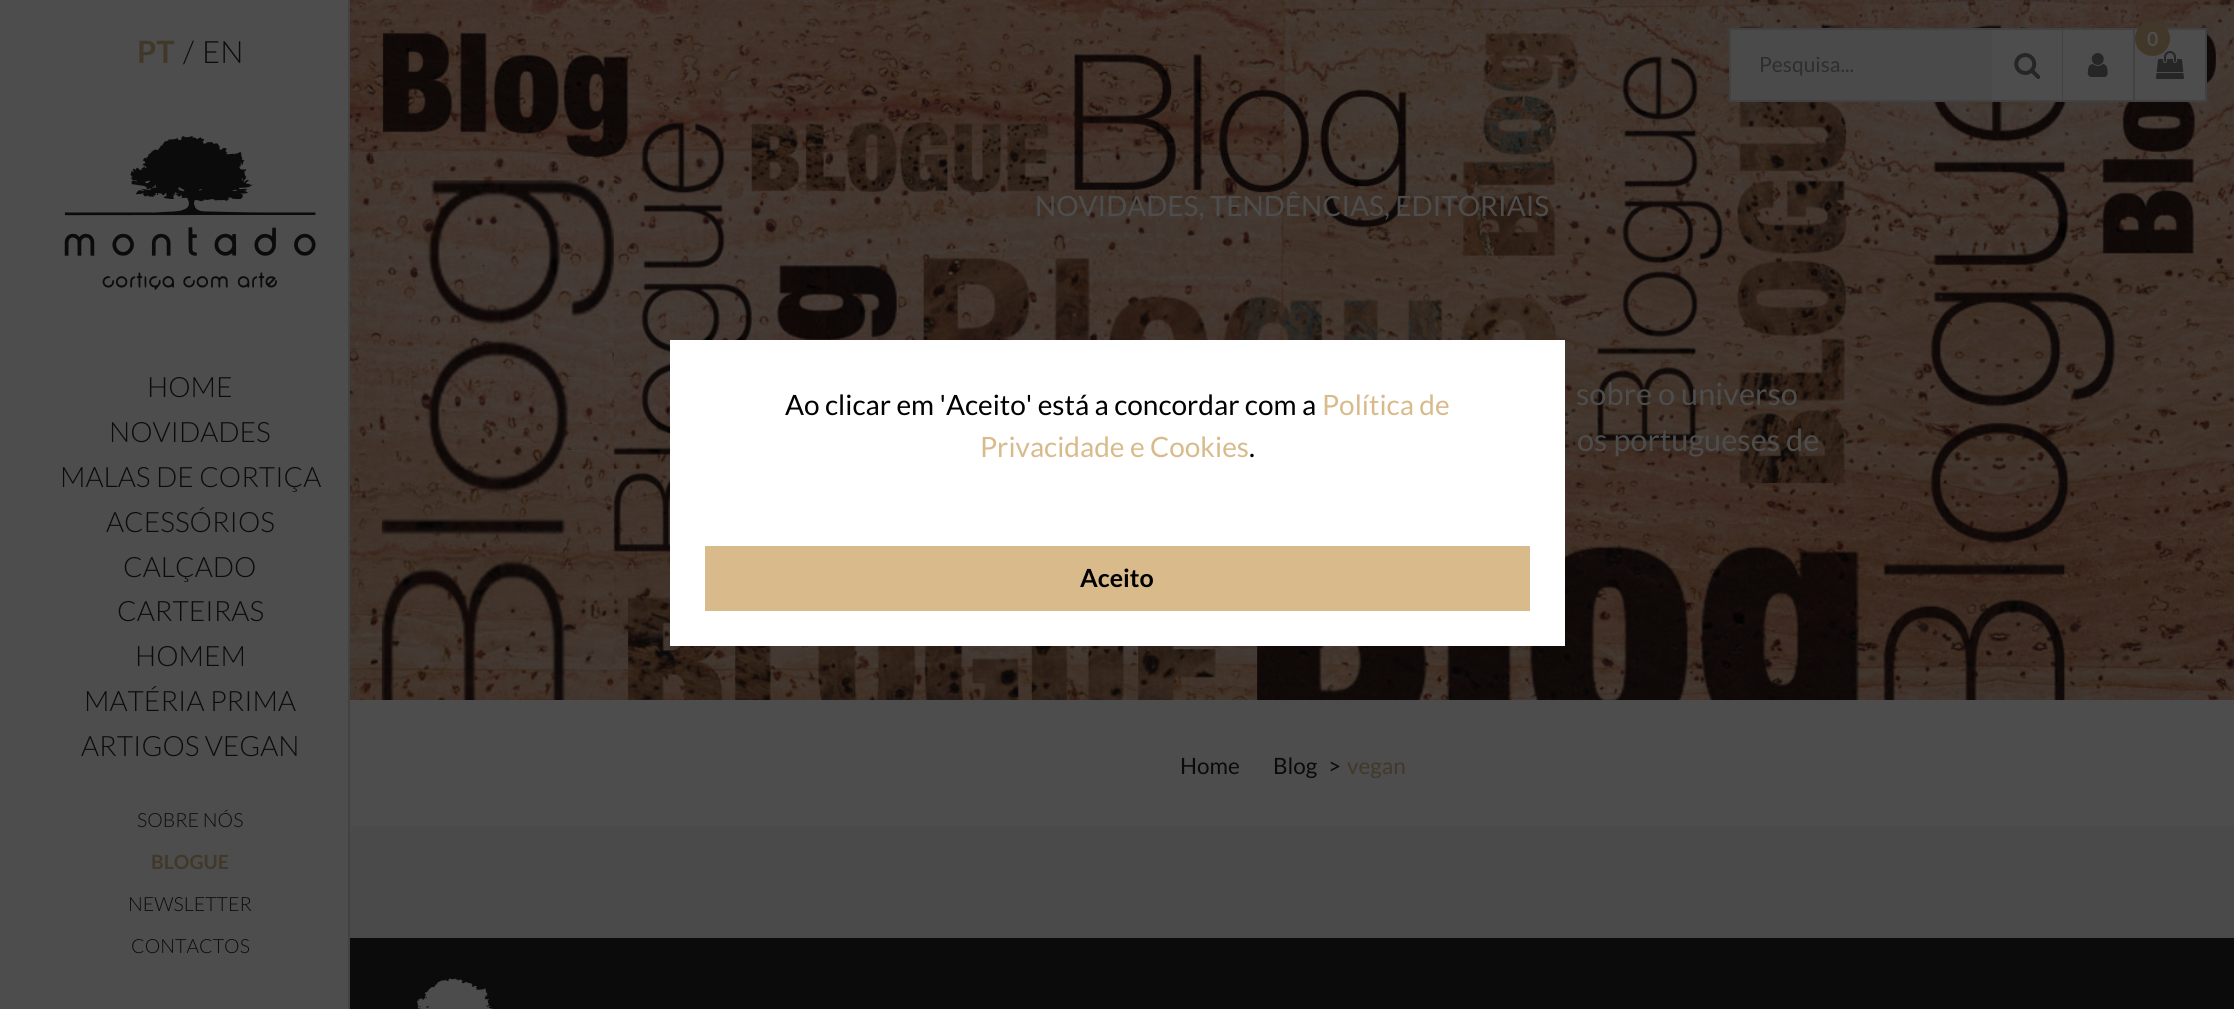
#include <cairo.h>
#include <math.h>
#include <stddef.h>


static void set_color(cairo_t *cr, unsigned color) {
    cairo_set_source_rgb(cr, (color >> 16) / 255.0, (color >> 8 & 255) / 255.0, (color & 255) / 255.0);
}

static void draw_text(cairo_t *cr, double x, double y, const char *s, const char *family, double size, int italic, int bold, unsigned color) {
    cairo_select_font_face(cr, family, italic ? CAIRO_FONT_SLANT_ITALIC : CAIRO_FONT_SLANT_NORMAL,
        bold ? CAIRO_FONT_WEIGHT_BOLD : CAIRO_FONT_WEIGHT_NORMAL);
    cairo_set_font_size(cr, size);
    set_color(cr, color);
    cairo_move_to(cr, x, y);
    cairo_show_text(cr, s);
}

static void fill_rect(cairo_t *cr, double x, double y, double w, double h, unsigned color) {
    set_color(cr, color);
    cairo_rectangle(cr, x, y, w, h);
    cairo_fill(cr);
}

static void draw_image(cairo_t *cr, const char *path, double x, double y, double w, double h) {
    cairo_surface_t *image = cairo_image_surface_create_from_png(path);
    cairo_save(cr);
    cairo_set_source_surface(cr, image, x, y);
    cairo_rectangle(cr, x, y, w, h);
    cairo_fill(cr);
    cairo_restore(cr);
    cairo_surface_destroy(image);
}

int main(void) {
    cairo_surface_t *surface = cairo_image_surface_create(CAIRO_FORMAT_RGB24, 2234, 1009);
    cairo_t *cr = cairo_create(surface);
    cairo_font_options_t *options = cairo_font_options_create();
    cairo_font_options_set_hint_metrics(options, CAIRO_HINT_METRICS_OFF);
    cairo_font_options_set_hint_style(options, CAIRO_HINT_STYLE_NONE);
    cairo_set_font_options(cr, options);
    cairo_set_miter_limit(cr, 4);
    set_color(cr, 0x4D4D4D);
    cairo_paint(cr);
    fill_rect(cr, 348, 0, 2, 1009, 0x424242);
    draw_text(cr, 137, 63, "PT", "Lato", 30.75, 0, 1, 0x41382A);
    draw_text(cr, 183, 63, "/", "Lato Light", 30.75, 0, 0, 0x0B0B0B);
    draw_text(cr, 202, 63, "EN", "Lato Light", 30.75, 0, 0, 0x0B0B0B);
    draw_image(cr, "assets/img1.png", 64, 136, 252, 154);
    draw_text(cr, 147, 397, "HOME", "Lato Light", 28, 0, 0, 0x0B0B0B);
    draw_text(cr, 109, 442, "NOVIDADES", "Lato Light", 28, 0, 0, 0x0B0B0B);
    draw_text(cr, 60, 487, "MALAS DE CORTIÇA", "Lato Light", 28, 0, 0, 0x0B0B0B);
    draw_text(cr, 106, 532, "ACESSÓRIOS", "Lato Light", 28, 0, 0, 0x0B0B0B);
    draw_text(cr, 123, 577, "CALÇADO", "Lato Light", 28, 0, 0, 0x0B0B0B);
    draw_text(cr, 117, 621, "CARTEIRAS", "Lato Light", 28, 0, 0, 0x0B0B0B);
    draw_text(cr, 135, 666, "HOMEM", "Lato Light", 28, 0, 0, 0x0B0B0B);
    draw_text(cr, 84, 711, "MATÉRIA PRIMA", "Lato Light", 28, 0, 0, 0x0B0B0B);
    draw_text(cr, 81, 756, "ARTIGOS VEGAN", "Lato Light", 28, 0, 0, 0x0B0B0B);
    draw_text(cr, 137, 827, "SOBRE NÓS", "Lato Light", 19.5, 0, 0, 0x0B0B0B);
    draw_text(cr, 151, 869, "BLOGUE", "Lato", 19.5, 0, 1, 0x41382A);
    draw_text(cr, 128, 911, "NEWSLETTER", "Lato Light", 19.5, 0, 0, 0x0B0B0B);
    draw_text(cr, 131, 953, "CONTACTOS", "Lato Light", 19.5, 0, 0, 0x0B0B0B);
    draw_image(cr, "assets/img5.png", 350, 0, 1884, 700);
    cairo_rectangle(cr, 2063, 29, 143, 72);
    set_color(cr, 0x424242);
    cairo_stroke(cr);
    fill_rect(cr, 2133, 30, 2, 70, 0x424242);
    fill_rect(cr, 2063, 30, 70, 70, 0x4D4D4D);
    draw_image(cr, "assets/img2.png", 2087, 53, 21, 24);
    fill_rect(cr, 2135, 30, 70, 70, 0x4D4D4D);
    draw_image(cr, "assets/img3.png", 2156, 51, 28, 28);
    set_color(cr, 0x41382A);
    cairo_arc(cr, 2152.5, 38.5, 17.5, 0, 2 * M_PI);
    cairo_fill(cr);
    draw_text(cr, 2147, 46, "0", "Lato", 19.5, 0, 1, 0x4D4D4D);
    cairo_rectangle(cr, 1730, 29, 332, 72);
    set_color(cr, 0x424242);
    cairo_stroke(cr);
    fill_rect(cr, 1731, 30, 261, 70, 0x4A4A4A);
    draw_text(cr, 1759, 72, "Pesquisa...", "Lato", 21, 0, 0, 0x2E2E2E);
    fill_rect(cr, 1992, 30, 70, 70, 0x4D4D4D);
    draw_image(cr, "assets/img4.png", 2014, 53, 27, 26);
    draw_text(cr, 1035, 216, "NOVIDADES, TENDÊNCIAS, EDITORIAIS", "Lato", 28, 0, 0, 0x4D4D4D);
    draw_text(cr, 1576, 405, "sobre o universo", "Lato", 30.75, 0, 0, 0x4D4D4D);
    draw_text(cr, 1577, 451, "os portugueses de", "Lato", 30.75, 0, 0, 0x4D4D4D);
    draw_text(cr, 1180, 774, "Home", "Lato", 22.5, 0, 0, 0x0B0B0B);
    draw_text(cr, 1273, 774, "Blog", "Lato", 22.5, 0, 0, 0x0B0B0B);
    draw_text(cr, 1328, 774, ">", "Lato", 22.5, 0, 0, 0x0B0B0B);
    draw_text(cr, 1347, 774, "vegan", "Lato", 22.5, 0, 0, 0x41382A);
    fill_rect(cr, 350, 826, 1884, 112, 0x4A4A4A);
    fill_rect(cr, 350, 938, 1884, 71, 0x0B0B0B);
    draw_image(cr, "assets/img6.png", 417, 978, 76, 31);
    fill_rect(cr, 670, 340, 895, 306, 0xFFFFFF);
    draw_text(cr, 785, 415, "Ao clicar em 'Aceito' está a concordar com a", "Lato", 28, 0, 0, 0x000000);
    draw_text(cr, 1322, 415, "Política de", "Lato", 28, 0, 0, 0xD9BA8B);
    draw_text(cr, 980, 457, "Privacidade e Cookies", "Lato", 28, 0, 0, 0xD9BA8B);
    draw_text(cr, 1249, 457, ".", "Lato", 28, 0, 0, 0x000000);
    fill_rect(cr, 705, 546, 825, 65, 0xD9BA8B);
    draw_text(cr, 1080, 587, "Aceito", "Lato", 25, 0, 1, 0x000000);
    cairo_surface_write_to_png(surface, "output.png");
    cairo_font_options_destroy(options);
    cairo_destroy(cr);
    cairo_surface_destroy(surface);
    return 0;
}
